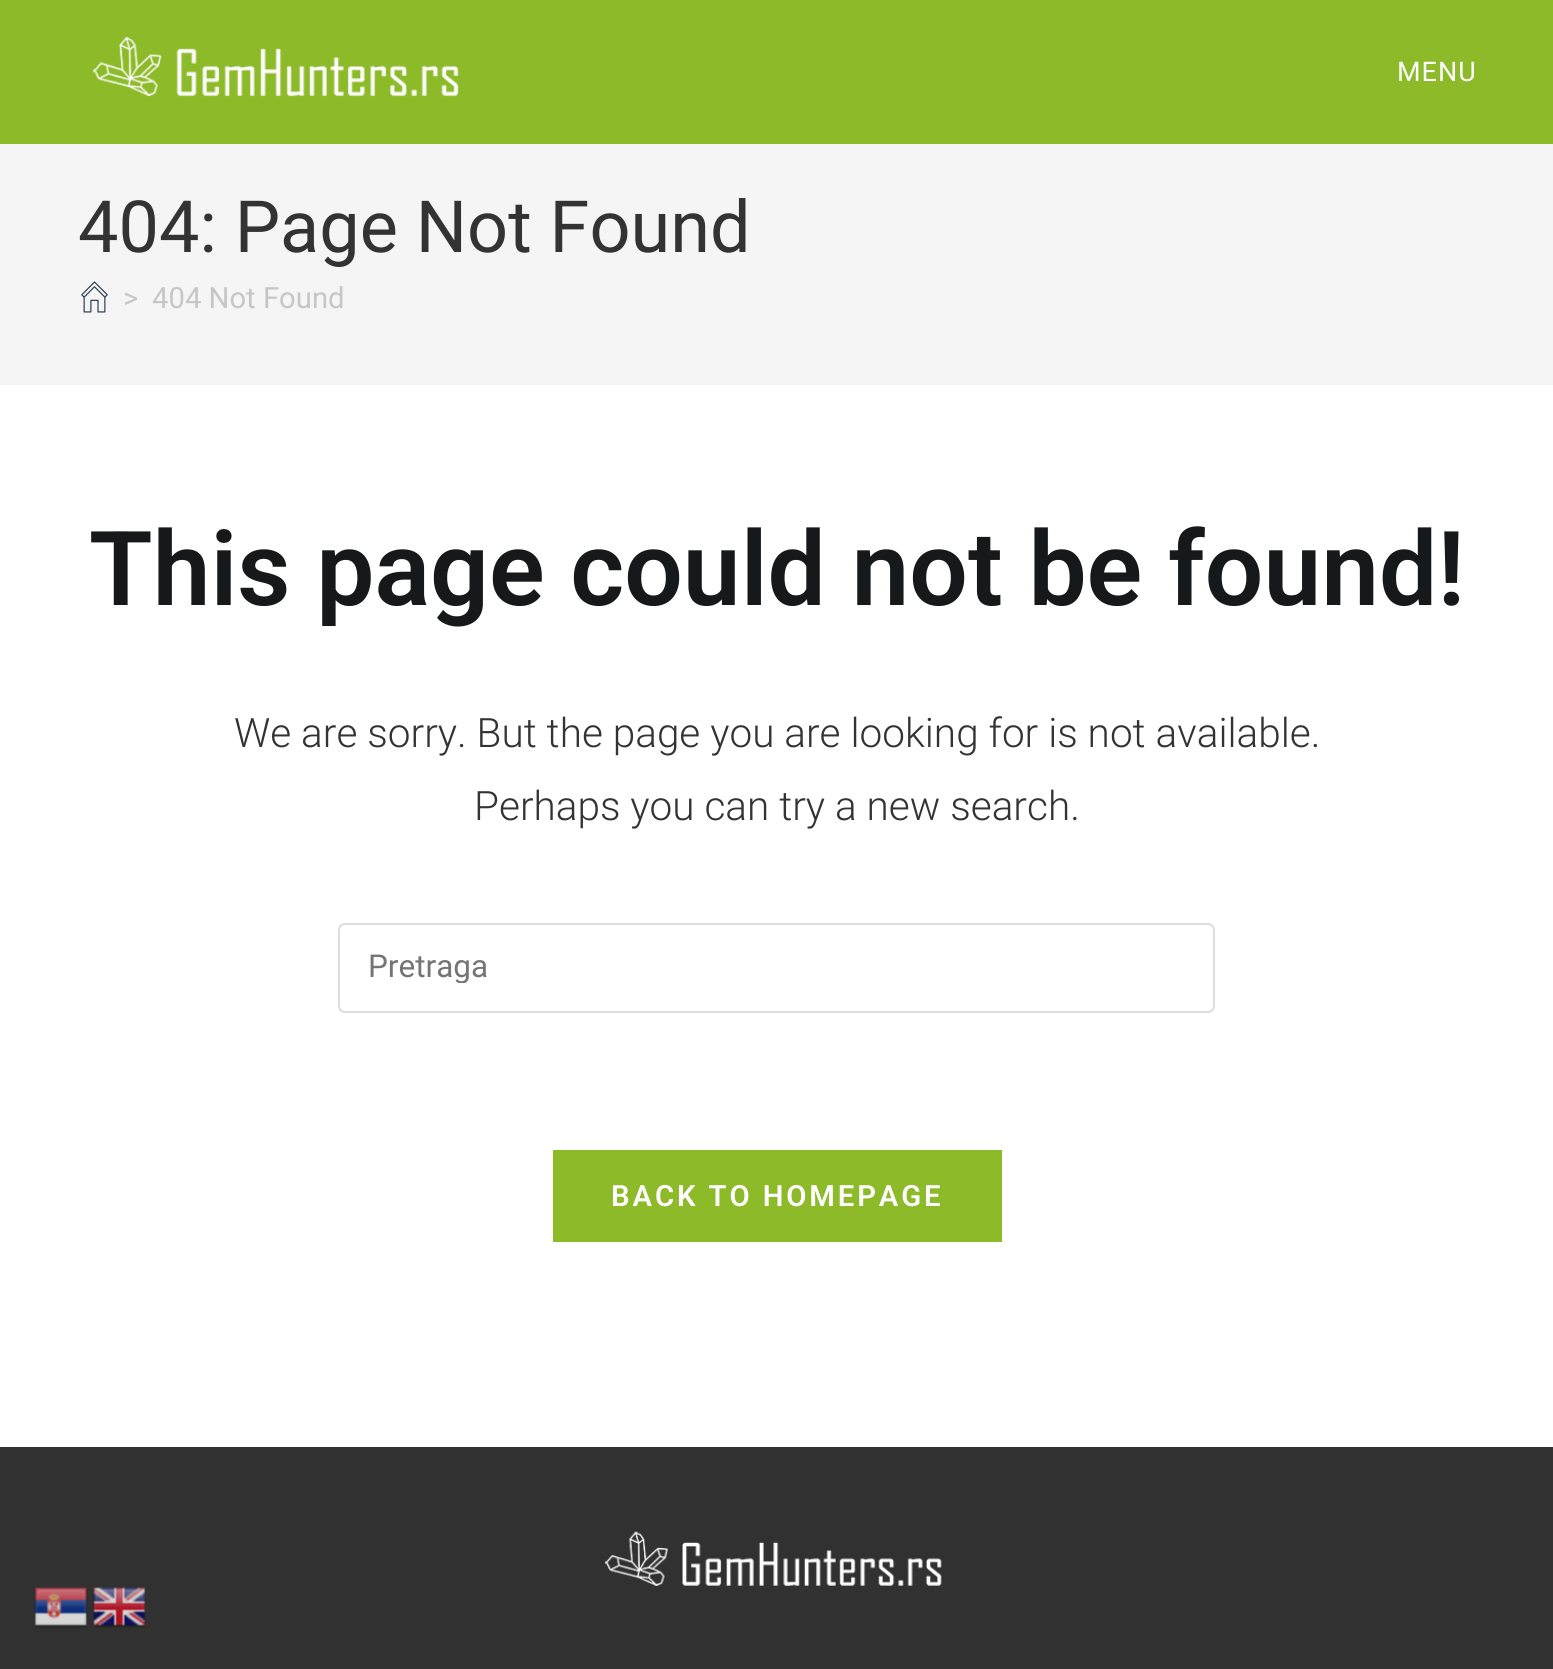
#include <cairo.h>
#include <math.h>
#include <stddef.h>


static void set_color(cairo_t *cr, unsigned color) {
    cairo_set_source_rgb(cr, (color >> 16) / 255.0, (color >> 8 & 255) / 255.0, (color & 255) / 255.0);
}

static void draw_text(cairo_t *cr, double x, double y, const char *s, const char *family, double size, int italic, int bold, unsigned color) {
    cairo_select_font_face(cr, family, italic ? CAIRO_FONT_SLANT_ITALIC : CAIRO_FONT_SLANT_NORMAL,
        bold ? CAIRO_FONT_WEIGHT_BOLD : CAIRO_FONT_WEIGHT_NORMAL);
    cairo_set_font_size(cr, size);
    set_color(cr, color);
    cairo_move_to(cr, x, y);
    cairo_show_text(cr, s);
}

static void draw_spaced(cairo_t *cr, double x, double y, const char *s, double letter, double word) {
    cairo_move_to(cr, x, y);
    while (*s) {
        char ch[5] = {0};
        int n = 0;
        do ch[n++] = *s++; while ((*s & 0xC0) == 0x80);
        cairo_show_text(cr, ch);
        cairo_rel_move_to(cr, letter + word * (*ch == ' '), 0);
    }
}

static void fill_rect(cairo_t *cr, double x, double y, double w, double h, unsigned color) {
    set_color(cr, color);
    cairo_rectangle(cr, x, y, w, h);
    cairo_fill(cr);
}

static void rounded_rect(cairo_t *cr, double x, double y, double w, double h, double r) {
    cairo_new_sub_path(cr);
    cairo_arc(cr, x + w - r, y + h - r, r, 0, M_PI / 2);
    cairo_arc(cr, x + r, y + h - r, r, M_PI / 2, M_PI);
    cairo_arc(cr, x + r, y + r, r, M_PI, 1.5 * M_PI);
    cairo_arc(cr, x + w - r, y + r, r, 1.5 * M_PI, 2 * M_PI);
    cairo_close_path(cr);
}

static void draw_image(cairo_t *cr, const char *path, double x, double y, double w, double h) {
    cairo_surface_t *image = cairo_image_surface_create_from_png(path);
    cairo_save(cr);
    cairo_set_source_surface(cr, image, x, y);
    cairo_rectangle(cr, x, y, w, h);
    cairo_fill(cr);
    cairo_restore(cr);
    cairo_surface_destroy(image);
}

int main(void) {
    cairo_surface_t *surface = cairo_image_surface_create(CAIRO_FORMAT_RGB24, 1553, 1669);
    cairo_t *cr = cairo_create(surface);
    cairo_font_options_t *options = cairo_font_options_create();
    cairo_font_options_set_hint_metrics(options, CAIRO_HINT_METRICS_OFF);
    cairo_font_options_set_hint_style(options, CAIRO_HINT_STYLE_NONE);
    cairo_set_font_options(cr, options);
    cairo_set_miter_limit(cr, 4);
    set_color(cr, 0xFFFFFF);
    cairo_paint(cr);
    fill_rect(cr, 0, 0, 1553, 144, 0x8CBA29);
    draw_image(cr, "assets/img1.png", 93, 36, 366, 61);
    cairo_select_font_face(cr, "Roboto", CAIRO_FONT_SLANT_NORMAL, CAIRO_FONT_WEIGHT_NORMAL);
    cairo_set_font_size(cr, 27);
    set_color(cr, 0xFFFFFF);
    draw_spaced(cr, 1397, 81, "MENU", 1, 0);
    fill_rect(cr, 0, 144, 1553, 241, 0xF5F5F5);
    draw_text(cr, 78, 252, "404: Page Not Found", "Roboto", 72, 0, 0, 0x333333);
    draw_image(cr, "assets/img2.png", 81, 281, 27, 32);
    draw_text(cr, 123, 308, ">", "Roboto", 29.25, 0, 0, 0xC6C6C6);
    draw_text(cr, 152, 308, "404 Not Found", "Roboto", 29.25, 0, 0, 0xC6C6C6);
    draw_text(cr, 89, 605, "This page could not be found!", "Roboto SemiBold", 103.5, 0, 0, 0x161819);
    draw_text(cr, 234, 747, "We are sorry. But the page you are looking for is not available.", "Roboto Light", 40.5, 0, 0, 0x333333);
    draw_text(cr, 474, 820, "Perhaps you can try a new search.", "Roboto Light", 40.5, 0, 0, 0x333333);
    rounded_rect(cr, 339, 924, 875, 88, 6);
    set_color(cr, 0xDDDDDD);
    cairo_stroke(cr);
    cairo_save(cr);
    cairo_rectangle(cr, 367, 947, 819, 36);
    cairo_clip(cr);
    draw_text(cr, 368, 977, "Pretraga", "Roboto", 31.5, 0, 0, 0x757575);
    cairo_restore(cr);
    fill_rect(cr, 553, 1150, 449, 92, 0x8CBA29);
    cairo_select_font_face(cr, "Roboto SemiBold", CAIRO_FONT_SLANT_NORMAL, CAIRO_FONT_WEIGHT_NORMAL);
    cairo_set_font_size(cr, 29.25);
    set_color(cr, 0xFFFFFF);
    draw_spaced(cr, 611, 1206, "BACK TO HOMEPAGE", 2.9, 0);
    fill_rect(cr, 0, 1447, 1553, 222, 0x313131);
    draw_image(cr, "assets/img3.png", 605, 1531, 337, 55);
    draw_image(cr, "assets/img4.png", 34, 1587, 54, 41);
    draw_image(cr, "assets/img5.png", 92, 1587, 54, 41);
    cairo_surface_write_to_png(surface, "output.png");
    cairo_font_options_destroy(options);
    cairo_destroy(cr);
    cairo_surface_destroy(surface);
    return 0;
}
